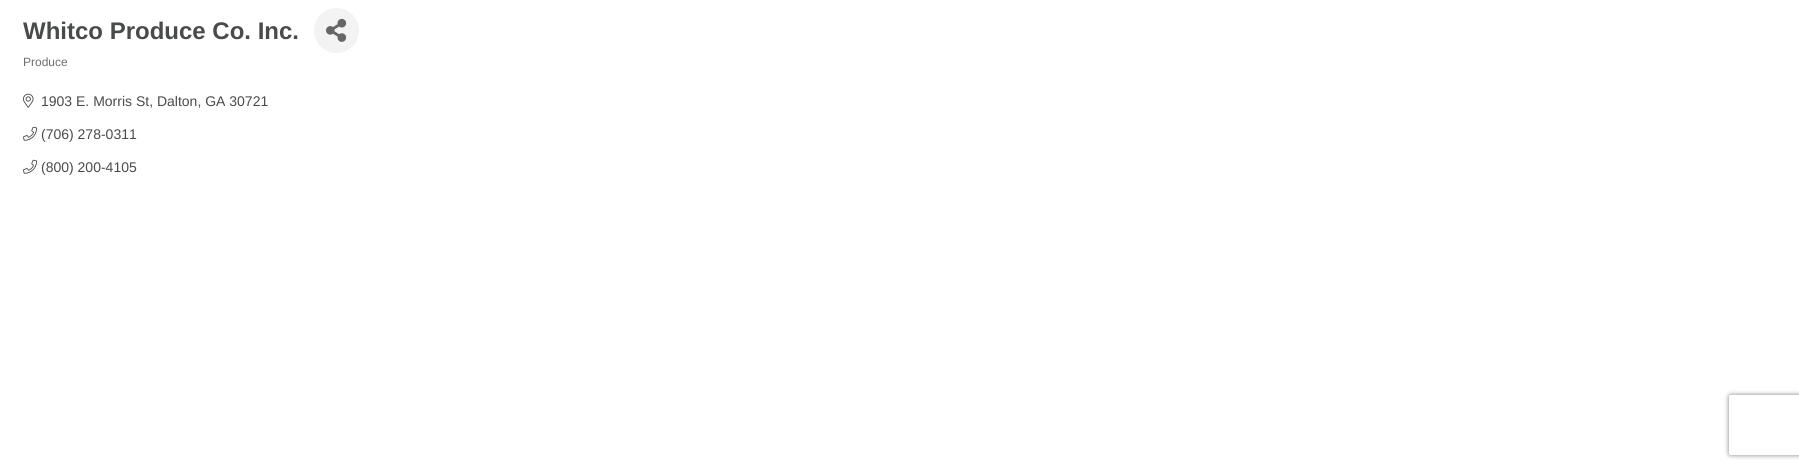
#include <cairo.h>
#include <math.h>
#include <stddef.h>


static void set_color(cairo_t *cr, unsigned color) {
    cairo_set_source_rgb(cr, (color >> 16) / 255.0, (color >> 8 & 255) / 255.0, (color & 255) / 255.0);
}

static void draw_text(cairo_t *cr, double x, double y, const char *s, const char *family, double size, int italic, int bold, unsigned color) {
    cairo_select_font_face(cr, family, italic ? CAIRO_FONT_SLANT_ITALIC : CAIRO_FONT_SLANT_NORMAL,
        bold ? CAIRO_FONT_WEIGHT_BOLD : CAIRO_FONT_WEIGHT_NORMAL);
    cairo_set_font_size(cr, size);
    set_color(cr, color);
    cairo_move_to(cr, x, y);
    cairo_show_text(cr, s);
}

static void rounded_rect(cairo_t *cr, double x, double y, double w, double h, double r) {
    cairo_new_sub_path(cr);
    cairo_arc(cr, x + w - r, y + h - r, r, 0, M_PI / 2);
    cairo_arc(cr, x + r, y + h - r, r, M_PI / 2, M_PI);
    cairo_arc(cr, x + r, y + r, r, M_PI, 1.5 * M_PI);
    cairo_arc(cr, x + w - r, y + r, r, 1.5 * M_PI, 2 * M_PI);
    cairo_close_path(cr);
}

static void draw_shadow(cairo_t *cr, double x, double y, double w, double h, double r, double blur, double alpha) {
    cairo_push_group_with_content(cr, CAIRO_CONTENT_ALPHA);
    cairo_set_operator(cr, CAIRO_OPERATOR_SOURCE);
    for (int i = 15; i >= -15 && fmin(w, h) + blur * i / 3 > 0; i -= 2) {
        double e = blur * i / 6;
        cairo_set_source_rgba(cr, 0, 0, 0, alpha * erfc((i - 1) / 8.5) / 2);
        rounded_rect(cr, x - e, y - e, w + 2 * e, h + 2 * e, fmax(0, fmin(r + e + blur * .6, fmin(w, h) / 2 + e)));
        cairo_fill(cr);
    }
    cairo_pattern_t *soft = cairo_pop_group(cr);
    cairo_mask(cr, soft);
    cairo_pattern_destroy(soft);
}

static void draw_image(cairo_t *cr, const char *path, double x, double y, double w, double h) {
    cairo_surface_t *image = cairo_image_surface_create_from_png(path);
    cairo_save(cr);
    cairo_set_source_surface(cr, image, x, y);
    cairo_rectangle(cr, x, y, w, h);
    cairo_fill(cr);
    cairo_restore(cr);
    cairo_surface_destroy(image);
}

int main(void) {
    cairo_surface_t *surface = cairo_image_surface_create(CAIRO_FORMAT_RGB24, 1799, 469);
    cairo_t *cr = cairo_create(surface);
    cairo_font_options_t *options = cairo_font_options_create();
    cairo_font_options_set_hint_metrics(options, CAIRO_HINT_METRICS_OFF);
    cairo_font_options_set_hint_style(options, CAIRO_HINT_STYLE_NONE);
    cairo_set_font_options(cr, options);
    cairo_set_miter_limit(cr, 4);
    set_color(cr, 0xFFFFFF);
    cairo_paint(cr);
    draw_text(cr, 23, 39, "Whitco Produce Co. Inc.", "Liberation Sans", 24, 0, 1, 0x484B4A);
    set_color(cr, 0xF3F3F3);
    cairo_new_path(cr);
    cairo_arc(cr, 336.5, 30.5, 22.5, 0, 2 * M_PI);
    cairo_fill(cr);
    draw_image(cr, "assets/img1.png", 326, 18, 21, 24);
    draw_text(cr, 23, 66, "Produce", "Liberation Sans", 12, 0, 0, 0x6D6F6E);
    draw_image(cr, "assets/img2.png", 23, 93, 11, 15);
    draw_text(cr, 41, 106, "1903 E. Morris St, Dalton, GA 30721", "Liberation Sans", 14, 0, 0, 0x484B4A);
    draw_image(cr, "assets/img3.png", 23, 126, 14, 15);
    draw_text(cr, 41, 139, "(706) 278-0311", "Liberation Sans", 14, 0, 0, 0x484B4A);
    draw_image(cr, "assets/img3.png", 23, 159, 14, 15);
    draw_text(cr, 41, 172, "(800) 200-4105", "Liberation Sans", 14, 0, 0, 0x484B4A);
    cairo_save(cr);
    cairo_set_fill_rule(cr, CAIRO_FILL_RULE_EVEN_ODD);
    cairo_new_path(cr);
    cairo_move_to(cr, 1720, 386);
    cairo_line_to(cr, 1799, 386);
    cairo_line_to(cr, 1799, 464);
    cairo_line_to(cr, 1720, 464);
    cairo_close_path(cr);
    cairo_move_to(cr, 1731, 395);
    cairo_line_to(cr, 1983, 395);
    cairo_curve_to(cr, 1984, 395, 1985, 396, 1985, 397);
    cairo_line_to(cr, 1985, 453);
    cairo_curve_to(cr, 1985, 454, 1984, 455, 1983, 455);
    cairo_line_to(cr, 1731, 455);
    cairo_curve_to(cr, 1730, 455, 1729, 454, 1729, 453);
    cairo_line_to(cr, 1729, 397);
    cairo_curve_to(cr, 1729, 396, 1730, 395, 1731, 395);
    cairo_close_path(cr);
    cairo_clip(cr);
    set_color(cr, 0x808080);
    draw_shadow(cr, 1729, 395, 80, 60, 2, 2.5, 1);
    cairo_restore(cr);
    cairo_surface_write_to_png(surface, "output.png");
    cairo_font_options_destroy(options);
    cairo_destroy(cr);
    cairo_surface_destroy(surface);
    return 0;
}
